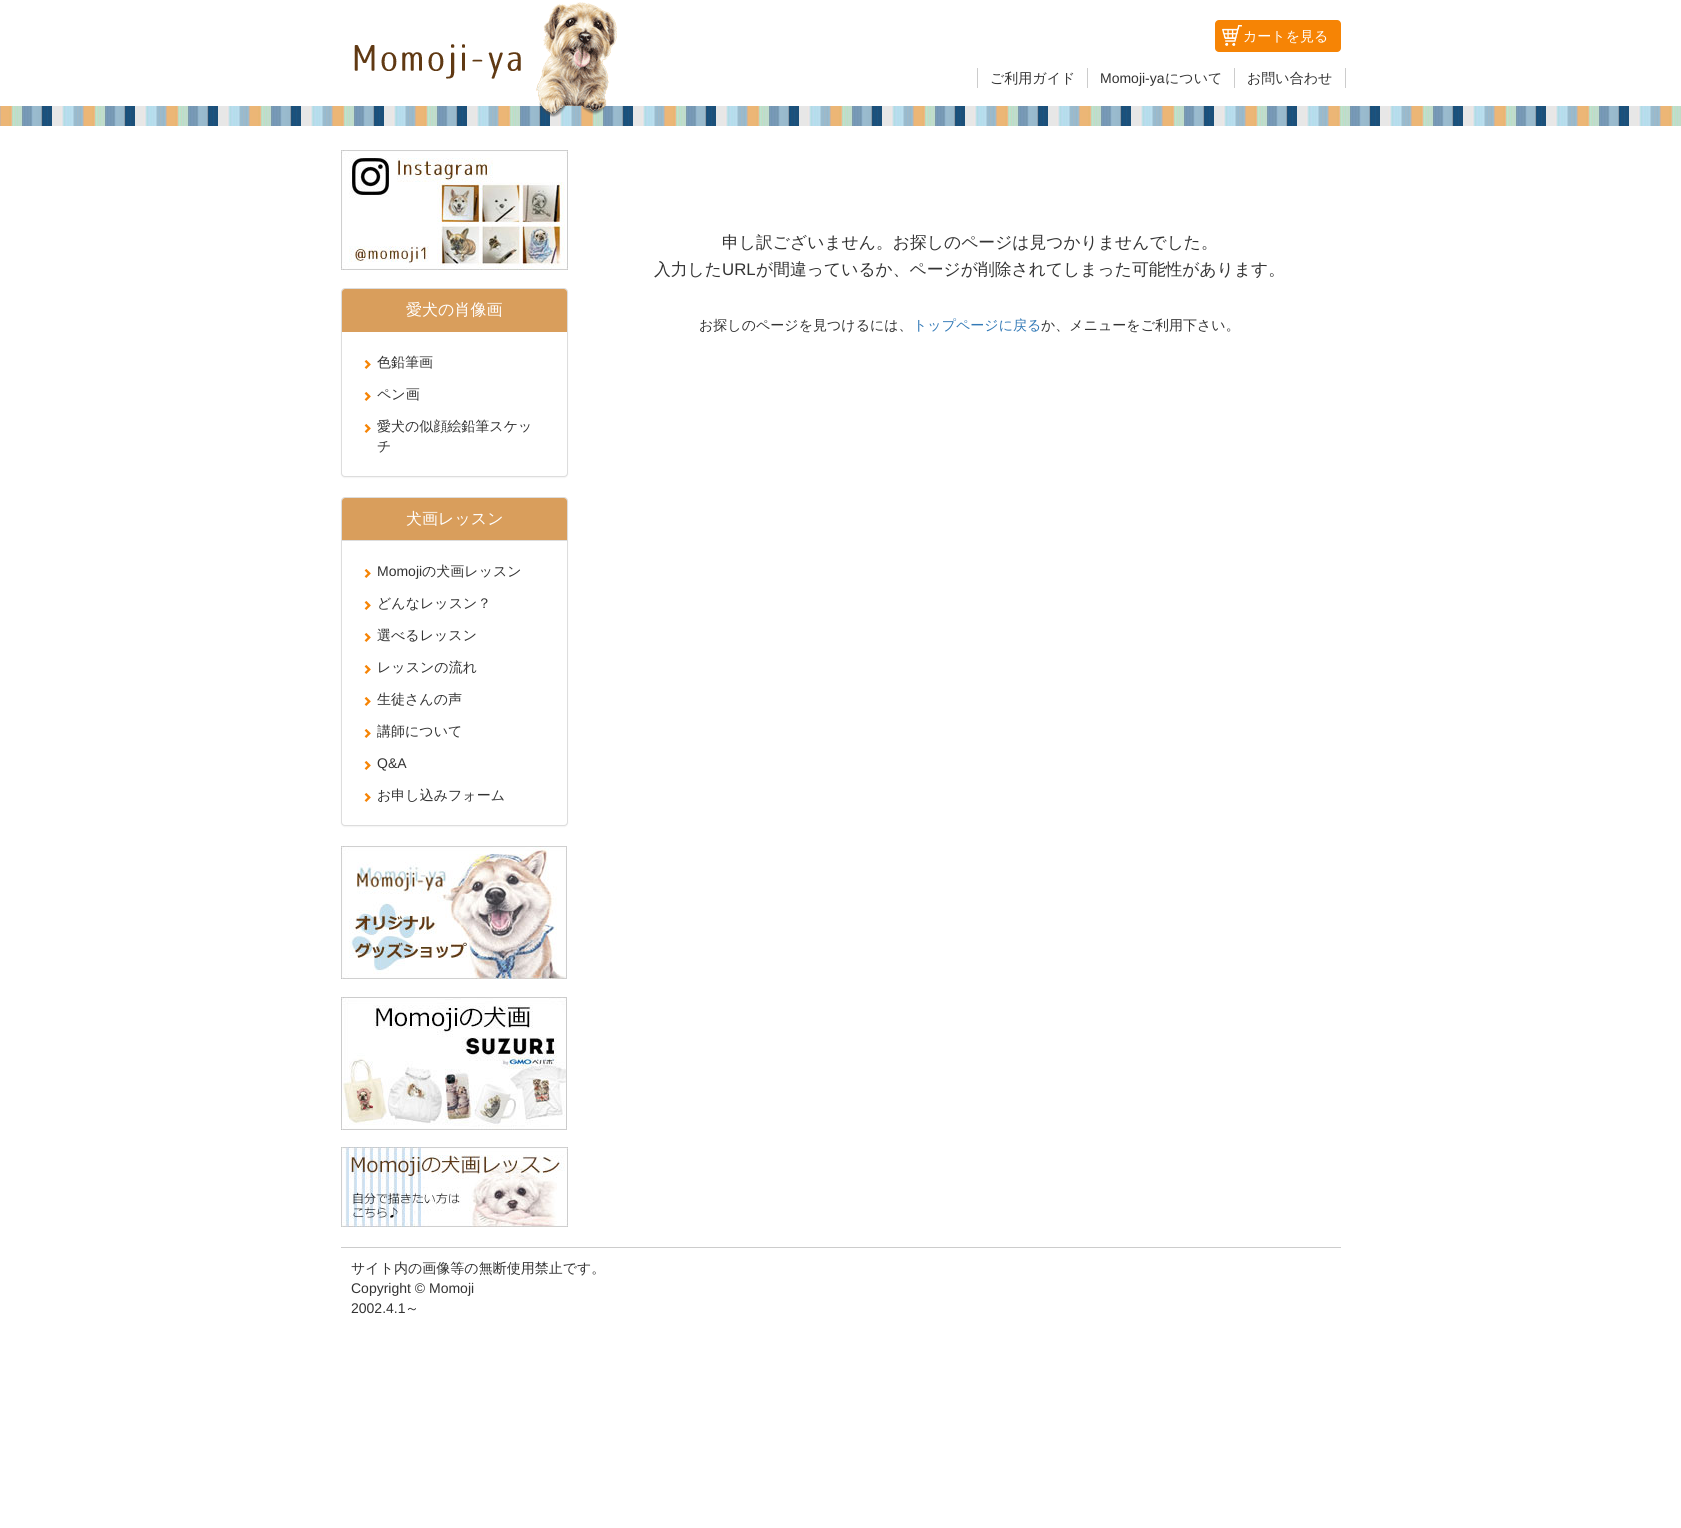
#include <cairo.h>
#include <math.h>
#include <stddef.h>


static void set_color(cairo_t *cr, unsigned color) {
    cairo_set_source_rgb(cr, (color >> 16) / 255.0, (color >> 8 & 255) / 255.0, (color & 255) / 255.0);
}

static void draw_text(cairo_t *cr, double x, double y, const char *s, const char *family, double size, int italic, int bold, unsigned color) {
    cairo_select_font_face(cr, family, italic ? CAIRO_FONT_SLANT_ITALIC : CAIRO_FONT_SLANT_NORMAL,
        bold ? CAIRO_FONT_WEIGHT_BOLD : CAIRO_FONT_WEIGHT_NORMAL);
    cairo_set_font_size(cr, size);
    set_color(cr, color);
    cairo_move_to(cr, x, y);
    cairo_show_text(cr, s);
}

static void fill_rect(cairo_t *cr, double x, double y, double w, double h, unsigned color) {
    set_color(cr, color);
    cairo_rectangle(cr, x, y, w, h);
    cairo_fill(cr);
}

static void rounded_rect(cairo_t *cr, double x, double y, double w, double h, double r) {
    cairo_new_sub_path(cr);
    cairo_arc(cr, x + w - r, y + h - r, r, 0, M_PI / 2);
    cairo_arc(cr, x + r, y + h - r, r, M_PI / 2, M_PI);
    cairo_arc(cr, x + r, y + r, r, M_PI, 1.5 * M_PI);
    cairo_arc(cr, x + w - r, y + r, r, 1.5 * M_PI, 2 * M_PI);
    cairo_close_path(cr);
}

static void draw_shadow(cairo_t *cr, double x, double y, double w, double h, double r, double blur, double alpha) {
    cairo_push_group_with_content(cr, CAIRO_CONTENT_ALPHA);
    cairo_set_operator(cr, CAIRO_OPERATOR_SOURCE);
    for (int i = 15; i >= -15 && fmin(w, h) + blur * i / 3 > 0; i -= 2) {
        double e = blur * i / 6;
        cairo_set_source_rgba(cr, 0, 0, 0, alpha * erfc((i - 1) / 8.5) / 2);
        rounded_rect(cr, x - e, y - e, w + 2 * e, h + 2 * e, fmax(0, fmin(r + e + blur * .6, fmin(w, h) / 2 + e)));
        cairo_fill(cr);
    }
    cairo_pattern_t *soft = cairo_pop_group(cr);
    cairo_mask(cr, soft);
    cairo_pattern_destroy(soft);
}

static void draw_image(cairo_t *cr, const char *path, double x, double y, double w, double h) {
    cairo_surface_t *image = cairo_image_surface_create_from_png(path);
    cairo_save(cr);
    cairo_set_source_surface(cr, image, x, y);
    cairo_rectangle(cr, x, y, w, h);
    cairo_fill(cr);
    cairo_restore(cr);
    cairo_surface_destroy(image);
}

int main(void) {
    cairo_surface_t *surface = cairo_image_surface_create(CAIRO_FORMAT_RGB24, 1681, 1528);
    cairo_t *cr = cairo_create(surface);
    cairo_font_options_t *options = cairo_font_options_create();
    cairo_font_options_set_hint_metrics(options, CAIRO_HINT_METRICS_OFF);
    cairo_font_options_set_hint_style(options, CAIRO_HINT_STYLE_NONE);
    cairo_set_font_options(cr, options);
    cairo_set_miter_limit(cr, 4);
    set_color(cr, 0xFFFFFF);
    cairo_paint(cr);
    draw_image(cr, "assets/img1.png", 0, 106, 1681, 20);
    draw_image(cr, "assets/img2.png", 354, 44, 167, 35);
    draw_image(cr, "assets/img3.png", 536, 2, 81, 115);
    set_color(cr, 0xF68405);
    rounded_rect(cr, 1215, 20, 126, 32, 4);
    cairo_fill(cr);
    draw_image(cr, "assets/img4.png", 1222, 25, 20, 21);
    draw_text(cr, 1243, 41, "カートを見る", "WenQuanYi Zen Hei Medium", 14, 0, 0, 0xFFFFFF);
    fill_rect(cr, 977, 68, 1, 20, 0xCCCCCC);
    draw_text(cr, 990, 83, "ご利用ガイド", "WenQuanYi Zen Hei Medium", 14, 0, 0, 0x333333);
    fill_rect(cr, 1087, 68, 1, 20, 0xCCCCCC);
    draw_text(cr, 1100, 83, "Momoji-ya", "Liberation Sans", 14, 0, 0, 0x333333);
    draw_text(cr, 1165, 83, "について", "WenQuanYi Zen Hei Medium", 14, 0, 0, 0x333333);
    fill_rect(cr, 1345, 68, 1, 20, 0xCCCCCC);
    fill_rect(cr, 1234, 68, 1, 20, 0xCCCCCC);
    draw_text(cr, 1247, 83, "お問い合わせ", "WenQuanYi Zen Hei Medium", 14, 0, 0, 0x333333);
    draw_text(cr, 722, 248, "申し訳ございません。お探しのページは見つかりませんでした。", "WenQuanYi Zen Hei Medium", 16.8, 0, 0, 0x333333);
    draw_text(cr, 654, 275, "入力した", "WenQuanYi Zen Hei Medium", 16.8, 0, 0, 0x333333);
    draw_text(cr, 722, 275, "URL", "Liberation Sans", 16.8, 0, 0, 0x333333);
    draw_text(cr, 756, 275, "が間違っているか、ページが削除されてしまった可能性があります。", "WenQuanYi Zen Hei Medium", 16.8, 0, 0, 0x333333);
    draw_text(cr, 699, 330, "お探しのページを見つけるには、", "WenQuanYi Zen Hei Medium", 14, 0, 0, 0x333333);
    draw_text(cr, 913, 330, "トップページに戻る", "WenQuanYi Zen Hei Medium", 14, 0, 0, 0x337AB7);
    draw_text(cr, 1041, 330, "か、メニューをご利用下さい。", "WenQuanYi Zen Hei Medium", 14, 0, 0, 0x333333);
    draw_image(cr, "assets/img5.png", 341, 150, 227, 120);
    set_color(cr, 0x000000);
    draw_shadow(cr, 341, 289, 227, 189, 4, 0.5, 0.05);
    set_color(cr, 0xFFFFFF);
    rounded_rect(cr, 341.5, 288.5, 226, 188, 3.5);
    cairo_fill_preserve(cr);
    set_color(cr, 0xDDDDDD);
    cairo_set_line_width(cr, 1);
    cairo_stroke(cr);
    set_color(cr, 0xD99E5C);
    cairo_new_path(cr);
    cairo_move_to(cr, 345, 289);
    cairo_line_to(cr, 564, 289);
    cairo_curve_to(cr, 565.5, 289, 567, 290.5, 567, 292);
    cairo_line_to(cr, 567, 332);
    cairo_line_to(cr, 342, 332);
    cairo_line_to(cr, 342, 292);
    cairo_curve_to(cr, 342, 290.5, 343.5, 289, 345, 289);
    cairo_close_path(cr);
    cairo_fill(cr);
    draw_text(cr, 406, 315, "愛犬の肖像画", "WenQuanYi Zen Hei Medium", 16, 0, 0, 0xFFFFFF);
    draw_image(cr, "assets/img6.png", 364, 360, 7, 9);
    draw_text(cr, 377, 367, "色鉛筆画", "WenQuanYi Zen Hei Medium", 14, 0, 0, 0x333333);
    draw_image(cr, "assets/img6.png", 364, 392, 7, 9);
    draw_text(cr, 377, 399, "ペン画", "WenQuanYi Zen Hei Medium", 14, 0, 0, 0x333333);
    draw_image(cr, "assets/img6.png", 364, 424, 7, 9);
    draw_text(cr, 377, 431, "愛犬の似顔絵鉛筆スケッ", "WenQuanYi Zen Hei Medium", 14, 0, 0, 0x333333);
    draw_text(cr, 377, 451, "チ", "WenQuanYi Zen Hei Medium", 14, 0, 0, 0x333333);
    set_color(cr, 0x000000);
    draw_shadow(cr, 341, 498, 227, 329, 4, 0.5, 0.05);
    set_color(cr, 0xFFFFFF);
    rounded_rect(cr, 341.5, 497.5, 226, 328, 3.5);
    cairo_fill_preserve(cr);
    set_color(cr, 0xDDDDDD);
    cairo_stroke(cr);
    set_color(cr, 0xD99E5C);
    cairo_new_path(cr);
    cairo_move_to(cr, 345, 498);
    cairo_line_to(cr, 564, 498);
    cairo_curve_to(cr, 565.5, 498, 567, 499.5, 567, 501);
    cairo_line_to(cr, 567, 541);
    cairo_line_to(cr, 342, 541);
    cairo_line_to(cr, 342, 501);
    cairo_curve_to(cr, 342, 499.5, 343.5, 498, 345, 498);
    cairo_close_path(cr);
    cairo_fill(cr);
    fill_rect(cr, 342, 540, 225, 1, 0xDDDDDD);
    draw_text(cr, 406, 524, "犬画レッスン", "WenQuanYi Zen Hei Medium", 16, 0, 0, 0xFFFFFF);
    draw_image(cr, "assets/img6.png", 364, 569, 7, 9);
    draw_text(cr, 377, 576, "Momoji", "Liberation Sans", 14, 0, 0, 0x333333);
    draw_text(cr, 422, 576, "の犬画レッスン", "WenQuanYi Zen Hei Medium", 14, 0, 0, 0x333333);
    draw_image(cr, "assets/img6.png", 364, 601, 7, 9);
    draw_text(cr, 377, 608, "どんなレッスン？", "WenQuanYi Zen Hei Medium", 14, 0, 0, 0x333333);
    draw_image(cr, "assets/img6.png", 364, 633, 7, 9);
    draw_text(cr, 377, 640, "選べるレッスン", "WenQuanYi Zen Hei Medium", 14, 0, 0, 0x333333);
    draw_image(cr, "assets/img6.png", 364, 665, 7, 9);
    draw_text(cr, 377, 672, "レッスンの流れ", "WenQuanYi Zen Hei Medium", 14, 0, 0, 0x333333);
    draw_image(cr, "assets/img6.png", 364, 697, 7, 9);
    draw_text(cr, 377, 704, "生徒さんの声", "WenQuanYi Zen Hei Medium", 14, 0, 0, 0x333333);
    draw_image(cr, "assets/img6.png", 364, 729, 7, 9);
    draw_text(cr, 377, 736, "講師について", "WenQuanYi Zen Hei Medium", 14, 0, 0, 0x333333);
    draw_image(cr, "assets/img6.png", 364, 761, 7, 9);
    draw_text(cr, 377, 768, "Q&A", "Liberation Sans", 14, 0, 0, 0x333333);
    draw_image(cr, "assets/img6.png", 364, 793, 7, 9);
    draw_text(cr, 377, 800, "お申し込みフォーム", "WenQuanYi Zen Hei Medium", 14, 0, 0, 0x333333);
    draw_image(cr, "assets/img7.png", 341, 846, 226, 133);
    draw_image(cr, "assets/img8.png", 341, 997, 226, 133);
    draw_image(cr, "assets/img9.png", 341, 1147, 227, 80);
    fill_rect(cr, 341, 1247, 1000, 1, 0xCCCCCC);
    draw_text(cr, 351, 1273, "サイト内の画像等の無断使用禁止です。", "WenQuanYi Zen Hei Medium", 14, 0, 0, 0x333333);
    draw_text(cr, 351, 1293, "Copyright © Momoji", "Liberation Sans", 14, 0, 0, 0x333333);
    draw_text(cr, 351, 1313, "2002.4.1", "Liberation Sans", 14, 0, 0, 0x333333);
    draw_text(cr, 405, 1313, "～", "WenQuanYi Zen Hei Medium", 14, 0, 0, 0x333333);
    cairo_surface_write_to_png(surface, "output.png");
    cairo_font_options_destroy(options);
    cairo_destroy(cr);
    cairo_surface_destroy(surface);
    return 0;
}
